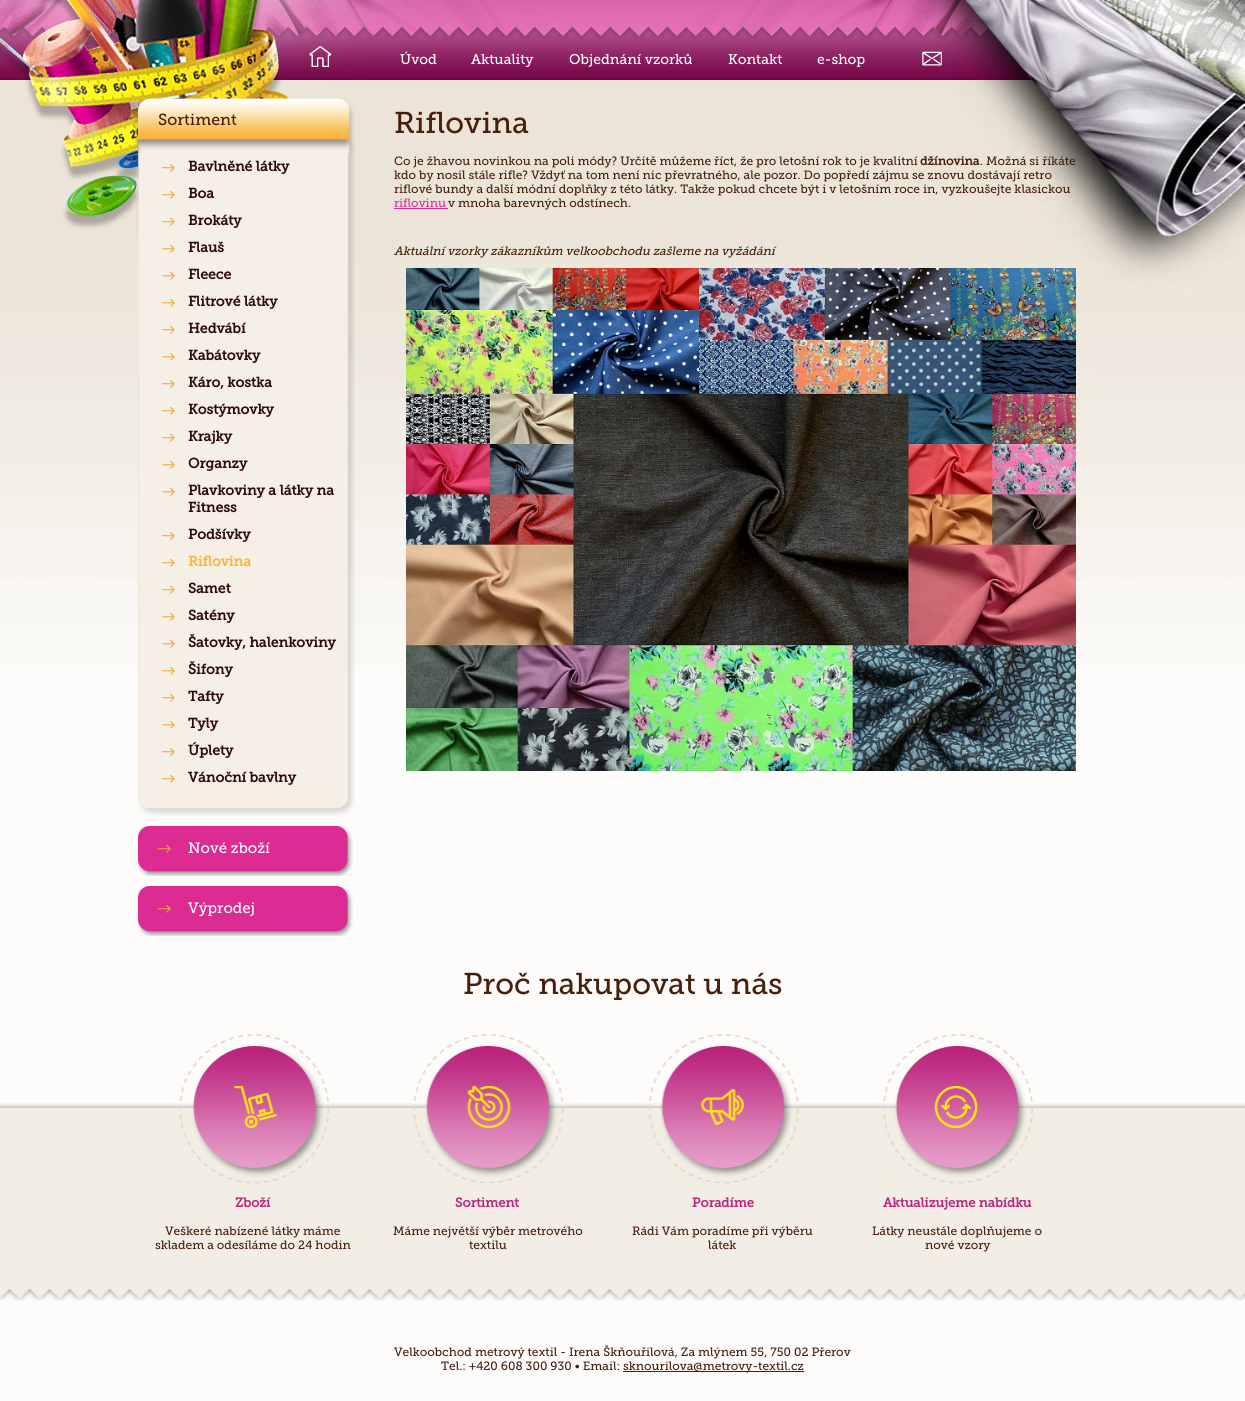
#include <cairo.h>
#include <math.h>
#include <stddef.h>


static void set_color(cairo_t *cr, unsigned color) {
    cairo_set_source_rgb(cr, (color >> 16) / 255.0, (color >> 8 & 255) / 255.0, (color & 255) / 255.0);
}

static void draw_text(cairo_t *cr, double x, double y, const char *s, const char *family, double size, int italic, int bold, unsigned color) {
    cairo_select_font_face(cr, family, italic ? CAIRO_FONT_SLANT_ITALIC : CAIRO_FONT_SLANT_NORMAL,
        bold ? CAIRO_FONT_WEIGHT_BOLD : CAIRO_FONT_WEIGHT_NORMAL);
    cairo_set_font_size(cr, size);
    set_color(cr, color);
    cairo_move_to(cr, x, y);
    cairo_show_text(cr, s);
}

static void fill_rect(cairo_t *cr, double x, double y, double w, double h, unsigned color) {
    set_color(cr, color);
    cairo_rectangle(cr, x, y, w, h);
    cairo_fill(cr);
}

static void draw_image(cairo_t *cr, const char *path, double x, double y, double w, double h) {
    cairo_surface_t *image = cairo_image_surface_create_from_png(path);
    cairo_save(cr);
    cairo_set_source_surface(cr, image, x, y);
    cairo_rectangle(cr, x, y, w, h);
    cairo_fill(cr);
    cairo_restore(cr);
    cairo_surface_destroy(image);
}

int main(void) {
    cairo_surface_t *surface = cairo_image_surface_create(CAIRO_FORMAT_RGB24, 1245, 1401);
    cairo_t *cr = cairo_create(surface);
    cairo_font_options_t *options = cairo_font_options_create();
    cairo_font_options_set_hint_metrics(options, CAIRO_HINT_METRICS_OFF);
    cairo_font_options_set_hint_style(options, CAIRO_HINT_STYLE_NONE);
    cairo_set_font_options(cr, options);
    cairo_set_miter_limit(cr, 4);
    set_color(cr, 0xFDFCFA);
    cairo_paint(cr);
    draw_image(cr, "assets/img1.png", 0, 0, 1245, 669);
    draw_image(cr, "assets/img3.png", 138, 0, 970, 80);
    draw_image(cr, "assets/img4.png", 138, 80, 218, 73);
    draw_image(cr, "assets/img5.png", 138, 153, 217, 638);
    draw_image(cr, "assets/img2.png", 0, 0, 139, 237);
    draw_text(cr, 400, 64, "Úvod", "Museo Slab", 14, 0, 0, 0xFFFFFF);
    draw_text(cr, 471, 64, "Aktuality", "Museo Slab", 14, 0, 0, 0xFFFFFF);
    draw_text(cr, 569, 64, "Objednání vzorků", "Museo Slab", 14, 0, 0, 0xFFFFFF);
    draw_text(cr, 728, 64, "Kontakt", "Museo Slab", 14, 0, 0, 0xFFFFFF);
    draw_text(cr, 817, 64, "e-shop", "Museo Slab", 14, 0, 0, 0xFFFFFF);
    draw_text(cr, 158, 125, "Sortiment", "Museo Slab", 16, 0, 0, 0x47200C);
    draw_image(cr, "assets/img6.png", 162, 164, 13, 8);
    draw_text(cr, 188, 171, "Bavlněné látky", "Museo Slab", 14, 0, 1, 0x2D0B0B);
    draw_image(cr, "assets/img6.png", 162, 191, 13, 8);
    draw_text(cr, 188, 198, "Boa", "Museo Slab", 14, 0, 1, 0x2D0B0B);
    draw_image(cr, "assets/img6.png", 162, 218, 13, 8);
    draw_text(cr, 188, 225, "Brokáty", "Museo Slab", 14, 0, 1, 0x2D0B0B);
    draw_image(cr, "assets/img6.png", 162, 245, 13, 8);
    draw_text(cr, 188, 252, "Flauš", "Museo Slab", 14, 0, 1, 0x2D0B0B);
    draw_image(cr, "assets/img6.png", 162, 272, 13, 8);
    draw_text(cr, 188, 279, "Fleece", "Museo Slab", 14, 0, 1, 0x2D0B0B);
    draw_image(cr, "assets/img6.png", 162, 299, 13, 8);
    draw_text(cr, 188, 306, "Flitrové látky", "Museo Slab", 14, 0, 1, 0x2D0B0B);
    draw_image(cr, "assets/img6.png", 162, 326, 13, 8);
    draw_text(cr, 188, 333, "Hedvábí", "Museo Slab", 14, 0, 1, 0x2D0B0B);
    draw_image(cr, "assets/img6.png", 162, 353, 13, 8);
    draw_text(cr, 188, 360, "Kabátovky", "Museo Slab", 14, 0, 1, 0x2D0B0B);
    draw_image(cr, "assets/img6.png", 162, 380, 13, 8);
    draw_text(cr, 188, 387, "Káro, kostka", "Museo Slab", 14, 0, 1, 0x2D0B0B);
    draw_image(cr, "assets/img6.png", 162, 407, 13, 8);
    draw_text(cr, 188, 414, "Kostýmovky", "Museo Slab", 14, 0, 1, 0x2D0B0B);
    draw_image(cr, "assets/img6.png", 162, 434, 13, 8);
    draw_text(cr, 188, 441, "Krajky", "Museo Slab", 14, 0, 1, 0x2D0B0B);
    draw_image(cr, "assets/img6.png", 162, 461, 13, 8);
    draw_text(cr, 188, 468, "Organzy", "Museo Slab", 14, 0, 1, 0x2D0B0B);
    draw_image(cr, "assets/img6.png", 162, 488, 13, 8);
    draw_text(cr, 188, 495, "Plavkoviny a látky na", "Museo Slab", 14, 0, 1, 0x2D0B0B);
    draw_text(cr, 188, 512, "Fitness", "Museo Slab", 14, 0, 1, 0x2D0B0B);
    draw_image(cr, "assets/img6.png", 162, 532, 13, 8);
    draw_text(cr, 188, 539, "Podšívky", "Museo Slab", 14, 0, 1, 0x2D0B0B);
    draw_image(cr, "assets/img6.png", 162, 559, 13, 8);
    draw_text(cr, 188, 566, "Riflovina", "Museo Slab", 14, 0, 1, 0xF9B53C);
    draw_image(cr, "assets/img6.png", 162, 586, 13, 8);
    draw_text(cr, 188, 593, "Samet", "Museo Slab", 14, 0, 1, 0x2D0B0B);
    draw_image(cr, "assets/img6.png", 162, 613, 13, 8);
    draw_text(cr, 188, 620, "Satény", "Museo Slab", 14, 0, 1, 0x2D0B0B);
    draw_image(cr, "assets/img6.png", 162, 640, 13, 8);
    draw_text(cr, 188, 647, "Šatovky, halenkoviny", "Museo Slab", 14, 0, 1, 0x2D0B0B);
    draw_image(cr, "assets/img6.png", 162, 667, 13, 8);
    draw_text(cr, 188, 674, "Šifony", "Museo Slab", 14, 0, 1, 0x2D0B0B);
    draw_image(cr, "assets/img6.png", 162, 694, 13, 8);
    draw_text(cr, 188, 701, "Tafty", "Museo Slab", 14, 0, 1, 0x2D0B0B);
    draw_image(cr, "assets/img6.png", 162, 721, 13, 8);
    draw_text(cr, 188, 728, "Tyly", "Museo Slab", 14, 0, 1, 0x2D0B0B);
    draw_image(cr, "assets/img6.png", 162, 748, 13, 8);
    draw_text(cr, 188, 755, "Úplety", "Museo Slab", 14, 0, 1, 0x2D0B0B);
    draw_image(cr, "assets/img6.png", 162, 775, 13, 8);
    draw_text(cr, 188, 782, "Vánoční bavlny", "Museo Slab", 14, 0, 1, 0x2D0B0B);
    draw_image(cr, "assets/img7.png", 138, 791, 217, 25);
    draw_image(cr, "assets/img8.png", 138, 826, 215, 50);
    draw_text(cr, 188, 853, "Nové zboží", "Museo Slab", 15, 0, 0, 0xFFFFFF);
    draw_image(cr, "assets/img8.png", 138, 886, 215, 50);
    draw_text(cr, 188, 913, "Výprodej", "Museo Slab", 15, 0, 0, 0xFFFFFF);
    draw_text(cr, 394, 133, "Riflovina", "Museo Slab", 30, 0, 0, 0x47200C);
    draw_text(cr, 394, 165, "Co je žhavou novinkou na poli módy? Určitě můžeme říct, že pro letošní rok to je kvalitní", "Museo Slab", 12, 0, 0, 0x47200C);
    draw_text(cr, 920, 165, "džínovina", "Museo Slab", 12, 0, 1, 0x47200C);
    draw_text(cr, 980, 165, ". Možná si říkáte", "Museo Slab", 12, 0, 0, 0x47200C);
    draw_text(cr, 394, 179, "kdo by nosil stále rifle? Vždyť na tom není nic převratného, ale pozor. Do popředí zájmu se znovu dostávají retro", "Museo Slab", 12, 0, 0, 0x47200C);
    draw_text(cr, 394, 193, "riflové bundy a další módní doplňky z této látky. Takže pokud chcete být i v letošním roce in, vyzkoušejte klasickou", "Museo Slab", 12, 0, 0, 0x47200C);
    draw_text(cr, 394, 207, "riflovinu", "Museo Slab", 12, 0, 0, 0xDD2B94);
    fill_rect(cr, 394, 208, 54, 1, 0xDD2B94);
    draw_text(cr, 448, 207, "v mnoha barevných odstínech.", "Museo Slab", 12, 0, 0, 0x47200C);
    draw_text(cr, 394, 255, "Aktuální vzorky zákazníkům velkoobchodu zašleme na vyžádání", "Museo Slab", 12, 1, 0, 0x47200C);
    draw_image(cr, "assets/img9.png", 406, 268, 670, 503);
    draw_text(cr, 463, 994, "Proč nakupovat u nás", "Museo Slab", 30, 0, 0, 0x47200C);
    draw_image(cr, "assets/img10.png", 0, 1103, 1245, 198);
    draw_image(cr, "assets/img11.png", 179, 1034, 854, 150);
    draw_text(cr, 235, 1207, "Zboží", "Museo Slab", 13, 0, 1, 0xBC257F);
    draw_text(cr, 165, 1235, "Veškeré nabízené látky máme", "Museo Slab", 12, 0, 0, 0x47200C);
    draw_text(cr, 155, 1249, "skladem a odesíláme do 24 hodin", "Museo Slab", 12, 0, 0, 0x47200C);
    draw_text(cr, 455, 1207, "Sortiment", "Museo Slab", 13, 0, 1, 0xBC257F);
    draw_text(cr, 393, 1235, "Máme největší výběr metrového", "Museo Slab", 12, 0, 0, 0x47200C);
    draw_text(cr, 469, 1249, "textilu", "Museo Slab", 12, 0, 0, 0x47200C);
    draw_text(cr, 692, 1207, "Poradíme", "Museo Slab", 13, 0, 1, 0xBC257F);
    draw_text(cr, 632, 1235, "Rádi Vám poradíme při výběru", "Museo Slab", 12, 0, 0, 0x47200C);
    draw_text(cr, 708, 1249, "látek", "Museo Slab", 12, 0, 0, 0x47200C);
    draw_text(cr, 883, 1207, "Aktualizujeme nabídku", "Museo Slab", 13, 0, 1, 0xBC257F);
    draw_text(cr, 872, 1235, "Látky neustále doplňujeme o", "Museo Slab", 12, 0, 0, 0x47200C);
    draw_text(cr, 925, 1249, "nové vzory", "Museo Slab", 12, 0, 0, 0x47200C);
    draw_text(cr, 394, 1356, "Velkoobchod metrový textil - Irena Škňouřilová, Za mlýnem 55, 750 02 Přerov", "Museo Slab", 12, 0, 0, 0x47200C);
    draw_text(cr, 441, 1370, "Tel.: +420 608 300 930 • Email:", "Museo Slab", 12, 0, 0, 0x47200C);
    fill_rect(cr, 623, 1371, 181, 1, 0x47200C);
    draw_text(cr, 623, 1370, "sknourilova@metrovy-textil.cz", "Museo Slab", 12, 0, 0, 0x47200C);
    cairo_surface_write_to_png(surface, "output.png");
    cairo_font_options_destroy(options);
    cairo_destroy(cr);
    cairo_surface_destroy(surface);
    return 0;
}
